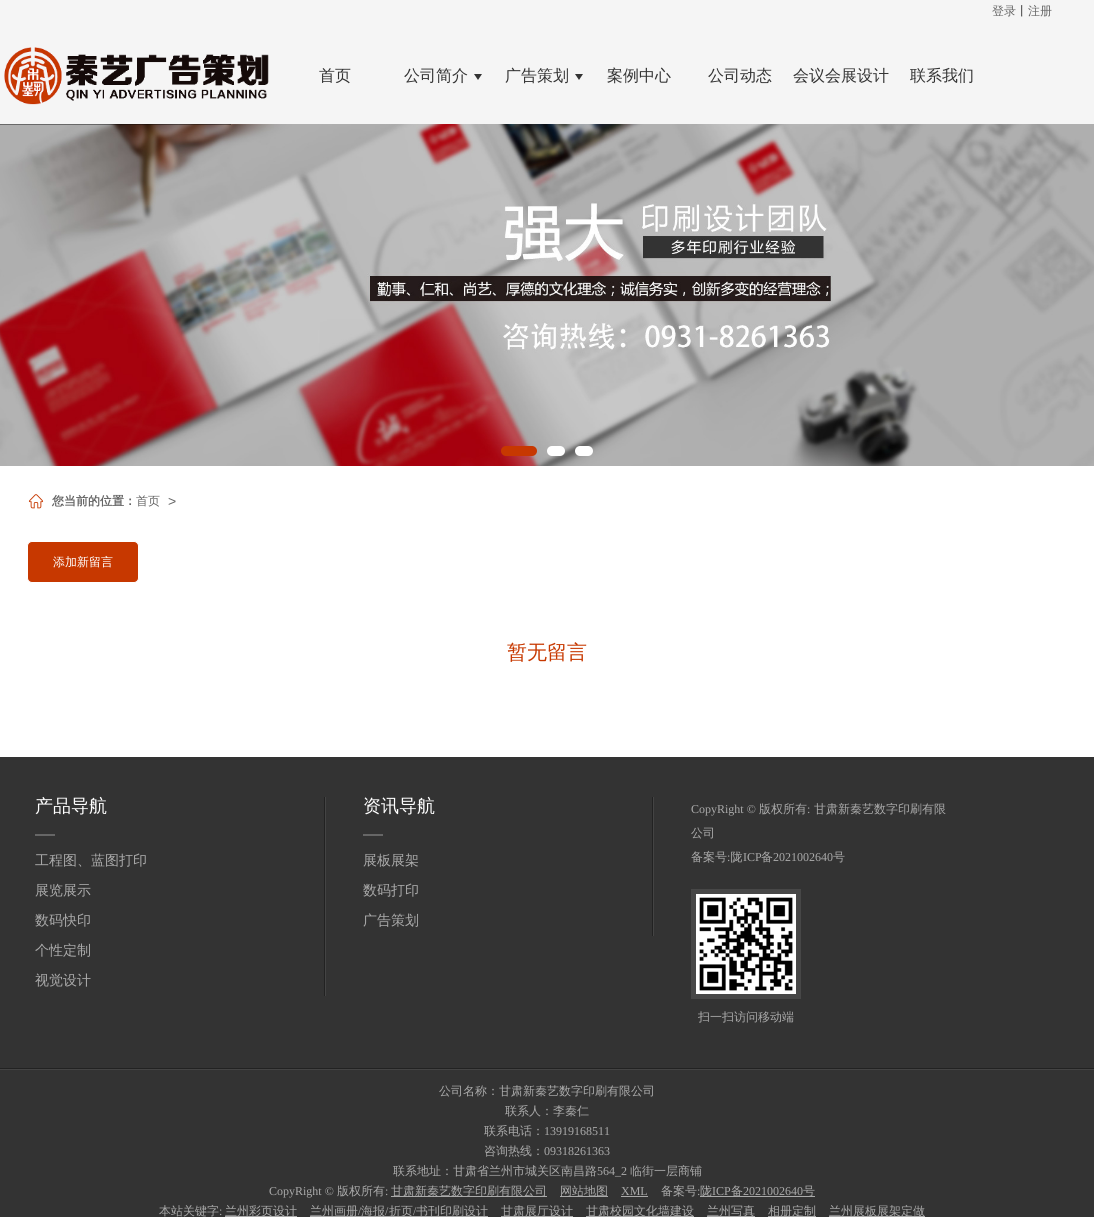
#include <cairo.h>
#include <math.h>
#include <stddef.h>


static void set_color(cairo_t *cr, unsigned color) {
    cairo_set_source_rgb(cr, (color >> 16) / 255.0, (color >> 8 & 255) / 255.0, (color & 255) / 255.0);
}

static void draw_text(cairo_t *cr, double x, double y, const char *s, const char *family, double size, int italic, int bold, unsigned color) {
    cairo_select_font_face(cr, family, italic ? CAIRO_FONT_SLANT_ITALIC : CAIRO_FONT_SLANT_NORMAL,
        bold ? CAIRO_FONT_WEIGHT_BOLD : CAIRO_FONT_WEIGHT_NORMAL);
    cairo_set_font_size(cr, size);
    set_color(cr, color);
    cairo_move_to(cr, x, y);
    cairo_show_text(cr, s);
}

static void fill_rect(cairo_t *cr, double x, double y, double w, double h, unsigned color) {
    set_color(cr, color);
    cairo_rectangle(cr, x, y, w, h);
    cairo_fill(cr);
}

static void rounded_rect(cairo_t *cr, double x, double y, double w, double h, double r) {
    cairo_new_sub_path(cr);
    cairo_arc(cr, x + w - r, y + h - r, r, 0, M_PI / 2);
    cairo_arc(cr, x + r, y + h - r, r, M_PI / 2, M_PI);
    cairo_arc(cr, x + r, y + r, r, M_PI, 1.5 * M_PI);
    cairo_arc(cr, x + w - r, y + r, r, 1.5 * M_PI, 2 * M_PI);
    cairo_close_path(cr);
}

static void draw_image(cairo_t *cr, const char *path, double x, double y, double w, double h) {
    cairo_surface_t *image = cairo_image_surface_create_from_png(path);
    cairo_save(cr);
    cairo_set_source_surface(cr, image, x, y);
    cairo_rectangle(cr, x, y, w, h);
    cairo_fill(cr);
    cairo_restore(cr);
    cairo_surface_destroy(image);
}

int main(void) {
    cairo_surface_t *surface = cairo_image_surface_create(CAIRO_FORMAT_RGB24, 1094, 1217);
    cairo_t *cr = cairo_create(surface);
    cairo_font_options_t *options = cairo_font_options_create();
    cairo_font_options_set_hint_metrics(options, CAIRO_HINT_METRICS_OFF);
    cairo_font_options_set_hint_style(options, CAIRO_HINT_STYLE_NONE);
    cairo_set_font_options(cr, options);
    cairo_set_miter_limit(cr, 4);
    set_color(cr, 0xFFFFFF);
    cairo_paint(cr);
    fill_rect(cr, 0, 0, 1094, 124, 0xF5F5F5);
    draw_text(cr, 992, 15, "登录", "WenQuanYi Zen Hei Medium", 12, 0, 0, 0x666666);
    draw_text(cr, 1016, 15, "丨", "WenQuanYi Zen Hei Medium", 12, 0, 0, 0x333333);
    draw_text(cr, 1028, 15, "注册", "WenQuanYi Zen Hei Medium", 12, 0, 0, 0x666666);
    draw_image(cr, "assets/img1.png", 4, 47, 265, 58);
    draw_text(cr, 319, 81, "首页", "WenQuanYi Zen Hei Medium", 16, 0, 0, 0x333333);
    draw_text(cr, 404, 81, "公司简介", "WenQuanYi Zen Hei Medium", 16, 0, 0, 0x333333);
    cairo_new_path(cr);
    cairo_move_to(cr, 474, 74);
    cairo_line_to(cr, 482, 74);
    cairo_line_to(cr, 478, 80);
    cairo_close_path(cr);
    cairo_fill(cr);
    draw_text(cr, 505, 81, "广告策划", "WenQuanYi Zen Hei Medium", 16, 0, 0, 0x333333);
    cairo_new_path(cr);
    cairo_move_to(cr, 575, 74);
    cairo_line_to(cr, 583, 74);
    cairo_line_to(cr, 579, 80);
    cairo_close_path(cr);
    cairo_fill(cr);
    draw_text(cr, 607, 81, "案例中心", "WenQuanYi Zen Hei Medium", 16, 0, 0, 0x333333);
    draw_text(cr, 708, 81, "公司动态", "WenQuanYi Zen Hei Medium", 16, 0, 0, 0x333333);
    draw_text(cr, 793, 81, "会议会展设计", "WenQuanYi Zen Hei Medium", 16, 0, 0, 0x333333);
    draw_text(cr, 910, 81, "联系我们", "WenQuanYi Zen Hei Medium", 16, 0, 0, 0x333333);
    draw_image(cr, "assets/img2.png", 0, 124, 1094, 342);
    cairo_set_source_rgba(cr, 0, 0, 0, 0.4);
    cairo_rectangle(cr, 0, 124, 231, 1);
    cairo_fill(cr);
    set_color(cr, 0xC73800);
    rounded_rect(cr, 501, 446, 36, 10, 5);
    cairo_fill(cr);
    set_color(cr, 0xFFFFFF);
    rounded_rect(cr, 547, 446, 18, 10, 5);
    cairo_fill(cr);
    rounded_rect(cr, 575, 446, 18, 10, 5);
    cairo_fill(cr);
    draw_image(cr, "assets/img3.png", 28, 494, 16, 15);
    draw_text(cr, 52, 505, "您当前的位置：", "WenQuanYi Zen Hei", 12, 0, 1, 0x666666);
    draw_text(cr, 136, 505, "首页", "WenQuanYi Zen Hei Medium", 12, 0, 0, 0x666666);
    draw_text(cr, 168, 506, ">", "Liberation Sans", 14, 0, 0, 0x666666);
    set_color(cr, 0xC73800);
    rounded_rect(cr, 27.5, 541.5, 111, 41, 4.5);
    cairo_fill_preserve(cr);
    set_color(cr, 0xFFFFFF);
    cairo_set_line_width(cr, 1);
    cairo_stroke(cr);
    draw_text(cr, 53, 566, "添加新留言", "WenQuanYi Zen Hei Medium", 12, 0, 0, 0xFFFFFF);
    draw_text(cr, 507, 659, "暂无留言", "WenQuanYi Zen Hei Medium", 20, 0, 0, 0xC73800);
    fill_rect(cr, 0, 757, 1094, 460, 0x333333);
    draw_image(cr, "assets/img4.png", 324, 797, 2, 199);
    draw_text(cr, 35, 812, "产品导航", "WenQuanYi Zen Hei Medium", 18, 0, 0, 0xFFFFFF);
    fill_rect(cr, 35, 834, 20, 2, 0x666666);
    draw_text(cr, 35, 865, "工程图、蓝图打印", "WenQuanYi Zen Hei Medium", 14, 0, 0, 0xAAAAAA);
    draw_text(cr, 35, 895, "展览展示", "WenQuanYi Zen Hei Medium", 14, 0, 0, 0xAAAAAA);
    draw_text(cr, 35, 925, "数码快印", "WenQuanYi Zen Hei Medium", 14, 0, 0, 0xAAAAAA);
    draw_text(cr, 35, 955, "个性定制", "WenQuanYi Zen Hei Medium", 14, 0, 0, 0xAAAAAA);
    draw_text(cr, 35, 985, "视觉设计", "WenQuanYi Zen Hei Medium", 14, 0, 0, 0xAAAAAA);
    draw_image(cr, "assets/img5.png", 652, 797, 2, 139);
    draw_text(cr, 363, 812, "资讯导航", "WenQuanYi Zen Hei Medium", 18, 0, 0, 0xFFFFFF);
    fill_rect(cr, 363, 834, 20, 2, 0x666666);
    draw_text(cr, 363, 865, "展板展架", "WenQuanYi Zen Hei Medium", 14, 0, 0, 0xAAAAAA);
    draw_text(cr, 363, 895, "数码打印", "WenQuanYi Zen Hei Medium", 14, 0, 0, 0xAAAAAA);
    draw_text(cr, 363, 925, "广告策划", "WenQuanYi Zen Hei Medium", 14, 0, 0, 0xAAAAAA);
    draw_text(cr, 691, 813, "CopyRight ©", "Liberation Serif", 12, 0, 0, 0xAAAAAA);
    draw_text(cr, 759, 813, "版权所有", "WenQuanYi Zen Hei Medium", 12, 0, 0, 0xAAAAAA);
    draw_text(cr, 807, 813, ":", "Liberation Serif", 12, 0, 0, 0xAAAAAA);
    draw_text(cr, 814, 813, "甘肃新秦艺数字印刷有限", "WenQuanYi Zen Hei Medium", 12, 0, 0, 0xAAAAAA);
    draw_text(cr, 691, 837, "公司", "WenQuanYi Zen Hei Medium", 12, 0, 0, 0xAAAAAA);
    draw_text(cr, 691, 861, "备案号 陇", "WenQuanYi Zen Hei Medium", 12, 0, 0, 0xAAAAAA);
    draw_text(cr, 743, 861, "ICP", "Liberation Serif", 12, 0, 0, 0xAAAAAA);
    draw_text(cr, 761, 861, "备", "WenQuanYi Zen Hei Medium", 12, 0, 0, 0xAAAAAA);
    draw_text(cr, 773, 861, "2021002640", "Liberation Serif", 12, 0, 0, 0xAAAAAA);
    draw_text(cr, 833, 861, "号", "WenQuanYi Zen Hei Medium", 12, 0, 0, 0xAAAAAA);
    draw_text(cr, 727, 861, ":", "Liberation Serif", 12, 0, 0, 0xAAAAAA);
    fill_rect(cr, 691, 889, 110, 110, 0x474747);
    draw_image(cr, "assets/img6.png", 696, 894, 100, 100);
    draw_text(cr, 698, 1021, "扫一扫访问移动端", "WenQuanYi Zen Hei Medium", 12, 0, 0, 0xAAAAAA);
    draw_image(cr, "assets/img7.png", 0, 1068, 1094, 2);
    draw_text(cr, 439, 1095, "公司名称：甘肃新秦艺数字印刷有限公司", "WenQuanYi Zen Hei Medium", 12, 0, 0, 0xAAAAAA);
    draw_text(cr, 505, 1115, "联系人：李秦仁", "WenQuanYi Zen Hei Medium", 12, 0, 0, 0xAAAAAA);
    draw_text(cr, 484, 1135, "联系电话：", "WenQuanYi Zen Hei Medium", 12, 0, 0, 0xAAAAAA);
    draw_text(cr, 544, 1135, "13919168511", "Liberation Serif", 12, 0, 0, 0xAAAAAA);
    draw_text(cr, 484, 1155, "咨询热线：", "WenQuanYi Zen Hei Medium", 12, 0, 0, 0xAAAAAA);
    draw_text(cr, 544, 1155, "09318261363", "Liberation Serif", 12, 0, 0, 0xAAAAAA);
    draw_text(cr, 393, 1175, "联系地址：甘肃省兰州市城关区南昌路", "WenQuanYi Zen Hei Medium", 12, 0, 0, 0xAAAAAA);
    draw_text(cr, 597, 1175, "564_2", "Liberation Serif", 12, 0, 0, 0xAAAAAA);
    draw_text(cr, 630, 1175, "临街一层商铺", "WenQuanYi Zen Hei Medium", 12, 0, 0, 0xAAAAAA);
    draw_text(cr, 269, 1195, "CopyRight ©", "Liberation Serif", 12, 0, 0, 0xAAAAAA);
    draw_text(cr, 337, 1195, "版权所有", "WenQuanYi Zen Hei Medium", 12, 0, 0, 0xAAAAAA);
    draw_text(cr, 385, 1195, ":", "Liberation Serif", 12, 0, 0, 0xAAAAAA);
    fill_rect(cr, 391, 1196, 156, 1, 0xAAAAAA);
    draw_text(cr, 391, 1195, "甘肃新秦艺数字印刷有限公司", "WenQuanYi Zen Hei Medium", 12, 0, 0, 0xAAAAAA);
    fill_rect(cr, 560, 1196, 48, 1, 0xAAAAAA);
    draw_text(cr, 560, 1195, "网站地图", "WenQuanYi Zen Hei Medium", 12, 0, 0, 0xAAAAAA);
    draw_text(cr, 621, 1195, "XML", "Liberation Serif", 12, 0, 0, 0xAAAAAA);
    fill_rect(cr, 621, 1196, 27, 1, 0xAAAAAA);
    draw_text(cr, 661, 1195, "备案号", "WenQuanYi Zen Hei Medium", 12, 0, 0, 0xAAAAAA);
    draw_text(cr, 697, 1195, ":", "Liberation Serif", 12, 0, 0, 0xAAAAAA);
    fill_rect(cr, 700, 1196, 115, 1, 0xAAAAAA);
    draw_text(cr, 700, 1195, "陇", "WenQuanYi Zen Hei Medium", 12, 0, 0, 0xAAAAAA);
    draw_text(cr, 712, 1195, "ICP", "Liberation Serif", 12, 0, 0, 0xAAAAAA);
    draw_text(cr, 731, 1195, "备", "WenQuanYi Zen Hei Medium", 12, 0, 0, 0xAAAAAA);
    draw_text(cr, 743, 1195, "2021002640", "Liberation Serif", 12, 0, 0, 0xAAAAAA);
    draw_text(cr, 803, 1195, "号", "WenQuanYi Zen Hei Medium", 12, 0, 0, 0xAAAAAA);
    draw_text(cr, 159, 1215, "本站关键字", "WenQuanYi Zen Hei Medium", 12, 0, 0, 0xAAAAAA);
    draw_text(cr, 219, 1215, ":", "Liberation Serif", 12, 0, 0, 0xAAAAAA);
    fill_rect(cr, 225, 1216, 72, 1, 0xAAAAAA);
    draw_text(cr, 225, 1215, "兰州彩页设计", "WenQuanYi Zen Hei Medium", 12, 0, 0, 0xAAAAAA);
    fill_rect(cr, 310, 1216, 178, 1, 0xAAAAAA);
    draw_text(cr, 310, 1215, "兰州画册", "WenQuanYi Zen Hei Medium", 12, 0, 0, 0xAAAAAA);
    draw_text(cr, 358, 1215, "/", "Liberation Serif", 12, 0, 0, 0xAAAAAA);
    draw_text(cr, 361, 1215, "海报", "WenQuanYi Zen Hei Medium", 12, 0, 0, 0xAAAAAA);
    draw_text(cr, 385, 1215, "/", "Liberation Serif", 12, 0, 0, 0xAAAAAA);
    draw_text(cr, 389, 1215, "折页", "WenQuanYi Zen Hei Medium", 12, 0, 0, 0xAAAAAA);
    draw_text(cr, 413, 1215, "/", "Liberation Serif", 12, 0, 0, 0xAAAAAA);
    draw_text(cr, 416, 1215, "书刊印刷设计", "WenQuanYi Zen Hei Medium", 12, 0, 0, 0xAAAAAA);
    fill_rect(cr, 501, 1216, 72, 1, 0xAAAAAA);
    draw_text(cr, 501, 1215, "甘肃展厅设计", "WenQuanYi Zen Hei Medium", 12, 0, 0, 0xAAAAAA);
    fill_rect(cr, 586, 1216, 108, 1, 0xAAAAAA);
    draw_text(cr, 586, 1215, "甘肃校园文化墙建设", "WenQuanYi Zen Hei Medium", 12, 0, 0, 0xAAAAAA);
    fill_rect(cr, 707, 1216, 48, 1, 0xAAAAAA);
    draw_text(cr, 707, 1215, "兰州写真", "WenQuanYi Zen Hei Medium", 12, 0, 0, 0xAAAAAA);
    fill_rect(cr, 768, 1216, 48, 1, 0xAAAAAA);
    draw_text(cr, 768, 1215, "相册定制", "WenQuanYi Zen Hei Medium", 12, 0, 0, 0xAAAAAA);
    fill_rect(cr, 829, 1216, 96, 1, 0xAAAAAA);
    draw_text(cr, 829, 1215, "兰州展板展架定做", "WenQuanYi Zen Hei Medium", 12, 0, 0, 0xAAAAAA);
    cairo_surface_write_to_png(surface, "output.png");
    cairo_font_options_destroy(options);
    cairo_destroy(cr);
    cairo_surface_destroy(surface);
    return 0;
}
